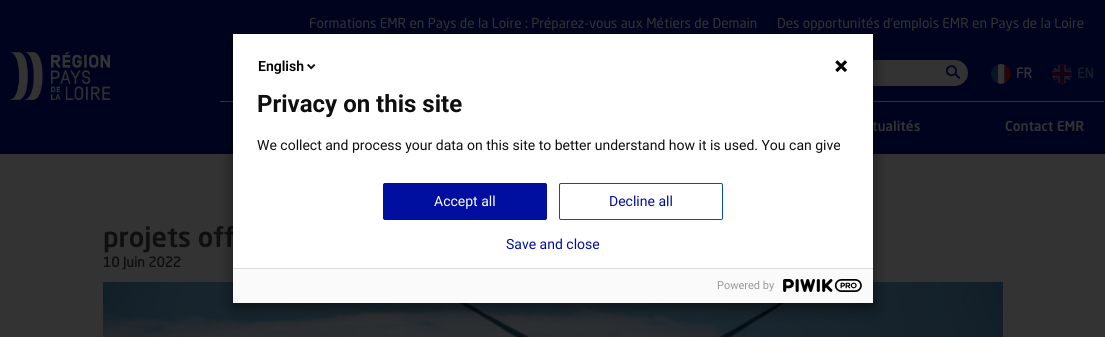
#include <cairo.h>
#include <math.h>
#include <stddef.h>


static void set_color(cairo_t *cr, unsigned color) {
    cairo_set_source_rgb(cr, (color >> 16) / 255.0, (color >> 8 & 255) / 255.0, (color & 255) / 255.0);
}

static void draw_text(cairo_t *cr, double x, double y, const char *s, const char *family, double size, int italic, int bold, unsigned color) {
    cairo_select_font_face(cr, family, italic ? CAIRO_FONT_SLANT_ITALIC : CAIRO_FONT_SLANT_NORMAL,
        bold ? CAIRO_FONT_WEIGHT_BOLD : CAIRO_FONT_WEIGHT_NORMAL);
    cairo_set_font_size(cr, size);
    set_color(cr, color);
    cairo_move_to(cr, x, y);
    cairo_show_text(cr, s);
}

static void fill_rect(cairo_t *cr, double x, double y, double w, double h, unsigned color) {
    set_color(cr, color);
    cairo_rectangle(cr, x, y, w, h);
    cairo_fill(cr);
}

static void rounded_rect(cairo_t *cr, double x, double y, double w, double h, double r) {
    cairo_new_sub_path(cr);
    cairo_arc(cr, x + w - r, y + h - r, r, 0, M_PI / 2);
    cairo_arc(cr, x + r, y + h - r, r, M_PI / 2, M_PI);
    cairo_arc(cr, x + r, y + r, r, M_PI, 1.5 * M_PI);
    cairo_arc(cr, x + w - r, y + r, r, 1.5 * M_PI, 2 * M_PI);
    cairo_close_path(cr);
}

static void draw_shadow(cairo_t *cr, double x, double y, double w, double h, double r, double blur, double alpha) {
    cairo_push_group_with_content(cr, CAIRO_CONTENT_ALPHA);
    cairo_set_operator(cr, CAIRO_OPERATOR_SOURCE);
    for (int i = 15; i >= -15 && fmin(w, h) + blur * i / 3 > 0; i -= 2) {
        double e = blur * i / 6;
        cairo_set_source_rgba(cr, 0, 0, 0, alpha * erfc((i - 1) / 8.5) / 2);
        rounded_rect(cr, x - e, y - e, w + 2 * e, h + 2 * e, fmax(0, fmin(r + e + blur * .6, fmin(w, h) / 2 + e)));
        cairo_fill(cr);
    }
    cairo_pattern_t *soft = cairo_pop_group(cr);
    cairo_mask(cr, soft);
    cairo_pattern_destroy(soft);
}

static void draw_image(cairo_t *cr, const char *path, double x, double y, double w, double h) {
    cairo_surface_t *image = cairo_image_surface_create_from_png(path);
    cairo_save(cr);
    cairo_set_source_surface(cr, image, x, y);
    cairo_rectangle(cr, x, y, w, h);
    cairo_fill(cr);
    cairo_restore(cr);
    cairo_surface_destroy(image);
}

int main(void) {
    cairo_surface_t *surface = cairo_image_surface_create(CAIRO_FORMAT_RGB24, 1105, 337);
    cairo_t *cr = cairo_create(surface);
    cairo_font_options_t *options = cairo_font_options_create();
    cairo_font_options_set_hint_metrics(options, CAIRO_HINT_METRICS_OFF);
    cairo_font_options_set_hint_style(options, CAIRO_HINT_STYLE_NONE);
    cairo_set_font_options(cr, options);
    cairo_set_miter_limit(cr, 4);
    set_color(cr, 0x333333);
    cairo_paint(cr);
    fill_rect(cr, 0, 0, 1105, 154, 0x00031E);
    draw_image(cr, "assets/img1.png", 10, 52, 100, 48);
    draw_text(cr, 309, 28, "Formations EMR en Pays de la Loire : Préparez-vous aux Métiers de Demain", "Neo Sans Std", 13.6, 0, 0, 0x333333);
    draw_text(cr, 777, 28, "Des opportunités d’emplois EMR en Pays de la Loire", "Neo Sans Std", 13.6, 0, 0, 0x333333);
    fill_rect(cr, 873, 60, 65, 26, 0x333333);
    cairo_new_path(cr);
    cairo_move_to(cr, 938, 60);
    cairo_line_to(cr, 955, 60);
    cairo_curve_to(cr, 962, 60, 968, 66, 968, 73);
    cairo_curve_to(cr, 968, 80, 962, 86, 955, 86);
    cairo_line_to(cr, 938, 86);
    cairo_close_path(cr);
    cairo_fill(cr);
    draw_image(cr, "assets/img2.png", 946, 65, 14, 14);
    draw_image(cr, "assets/img3.png", 991, 64, 20, 20);
    draw_text(cr, 1016, 78, "FR", "Neo Sans Std", 13.6, 0, 1, 0x333333);
    draw_image(cr, "assets/img4.png", 1052, 64, 20, 20);
    draw_text(cr, 1077, 78, "EN", "Neo Sans Std", 13.6, 0, 1, 0x1A1B29);
    fill_rect(cr, 220, 101, 884, 1, 0x333333);
    draw_text(cr, 872, 131, "tualités", "Neo Sans Std Medium", 13.6, 0, 0, 0x333333);
    draw_text(cr, 1005, 131, "Contact EMR", "Neo Sans Std Medium", 13.6, 0, 0, 0x333333);
    draw_text(cr, 103, 247, "projets off", "Neo Sans Std Medium", 27, 0, 0, 0x100F0F);
    draw_text(cr, 103, 267, "10 Juin 2022", "Neo Sans Std", 13.6, 0, 1, 0x100F0F);
    draw_image(cr, "assets/img5.png", 103, 282, 900, 55);
    set_color(cr, 0x000000);
    draw_shadow(cr, 233, 39, 640, 269, 0, 7.5, 0.5);
    fill_rect(cr, 233, 34, 640, 234, 0xFFFFFF);
    draw_text(cr, 258, 71, "English", "Roboto SemiBold", 14, 0, 0, 0x000000);
    draw_image(cr, "assets/img6.png", 307, 63, 9, 7);
    draw_image(cr, "assets/img7.png", 835, 60, 13, 13);
    draw_text(cr, 257, 112, "Privacy on this site", "Roboto", 24, 0, 1, 0x100F0F);
    draw_text(cr, 257, 150, "We collect and process your data on this site to better understand how it is used. You can give", "Roboto", 14, 0, 0, 0x100F0F);
    set_color(cr, 0x000FA0);
    rounded_rect(cr, 383.5, 183.5, 163, 36, 1.5);
    cairo_fill_preserve(cr);
    cairo_set_line_width(cr, 1);
    cairo_stroke(cr);
    draw_text(cr, 434, 206, "Accept all", "Roboto", 14, 0, 0, 0xFFFFFF);
    rounded_rect(cr, 559.5, 183.5, 163, 36, 1.5);
    set_color(cr, 0x0B4BB3);
    cairo_stroke(cr);
    draw_text(cr, 609, 206, "Decline all", "Roboto", 14, 0, 0, 0x000FA0);
    draw_text(cr, 506, 249, "Save and close", "Roboto", 14, 0, 0, 0x000FA0);
    fill_rect(cr, 233, 269, 640, 34, 0xFAFAFA);
    fill_rect(cr, 233, 268, 640, 1, 0xDDDDDD);
    draw_text(cr, 717, 289, "Powered by", "Roboto", 11, 0, 0, 0x999999);
    draw_image(cr, "assets/img8.png", 783, 279, 79, 13);
    cairo_surface_write_to_png(surface, "output.png");
    cairo_font_options_destroy(options);
    cairo_destroy(cr);
    cairo_surface_destroy(surface);
    return 0;
}
